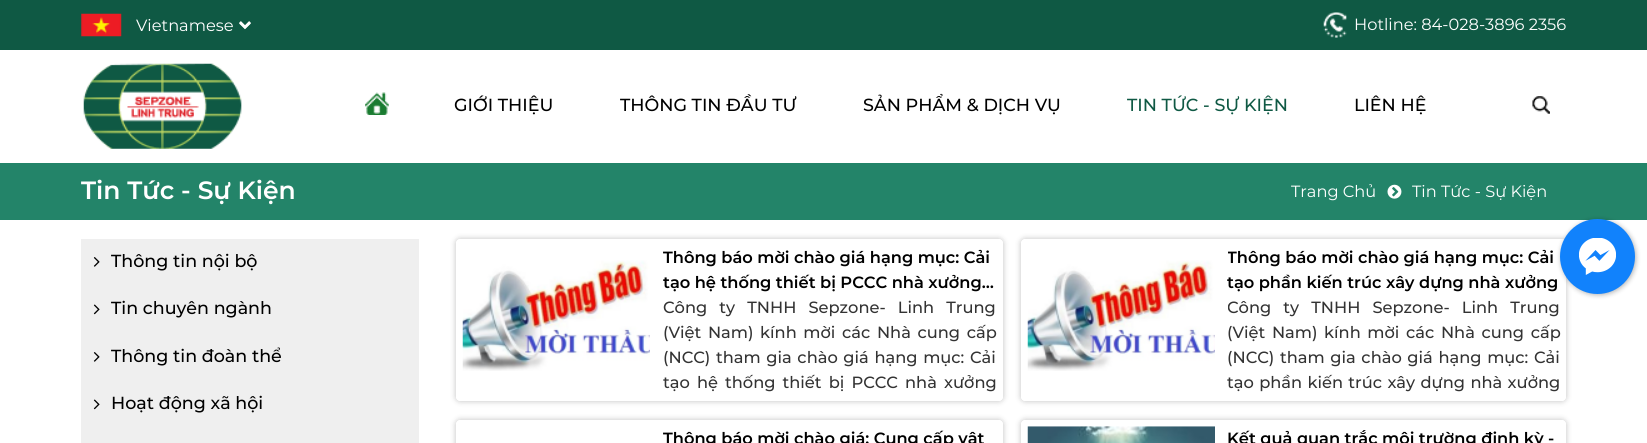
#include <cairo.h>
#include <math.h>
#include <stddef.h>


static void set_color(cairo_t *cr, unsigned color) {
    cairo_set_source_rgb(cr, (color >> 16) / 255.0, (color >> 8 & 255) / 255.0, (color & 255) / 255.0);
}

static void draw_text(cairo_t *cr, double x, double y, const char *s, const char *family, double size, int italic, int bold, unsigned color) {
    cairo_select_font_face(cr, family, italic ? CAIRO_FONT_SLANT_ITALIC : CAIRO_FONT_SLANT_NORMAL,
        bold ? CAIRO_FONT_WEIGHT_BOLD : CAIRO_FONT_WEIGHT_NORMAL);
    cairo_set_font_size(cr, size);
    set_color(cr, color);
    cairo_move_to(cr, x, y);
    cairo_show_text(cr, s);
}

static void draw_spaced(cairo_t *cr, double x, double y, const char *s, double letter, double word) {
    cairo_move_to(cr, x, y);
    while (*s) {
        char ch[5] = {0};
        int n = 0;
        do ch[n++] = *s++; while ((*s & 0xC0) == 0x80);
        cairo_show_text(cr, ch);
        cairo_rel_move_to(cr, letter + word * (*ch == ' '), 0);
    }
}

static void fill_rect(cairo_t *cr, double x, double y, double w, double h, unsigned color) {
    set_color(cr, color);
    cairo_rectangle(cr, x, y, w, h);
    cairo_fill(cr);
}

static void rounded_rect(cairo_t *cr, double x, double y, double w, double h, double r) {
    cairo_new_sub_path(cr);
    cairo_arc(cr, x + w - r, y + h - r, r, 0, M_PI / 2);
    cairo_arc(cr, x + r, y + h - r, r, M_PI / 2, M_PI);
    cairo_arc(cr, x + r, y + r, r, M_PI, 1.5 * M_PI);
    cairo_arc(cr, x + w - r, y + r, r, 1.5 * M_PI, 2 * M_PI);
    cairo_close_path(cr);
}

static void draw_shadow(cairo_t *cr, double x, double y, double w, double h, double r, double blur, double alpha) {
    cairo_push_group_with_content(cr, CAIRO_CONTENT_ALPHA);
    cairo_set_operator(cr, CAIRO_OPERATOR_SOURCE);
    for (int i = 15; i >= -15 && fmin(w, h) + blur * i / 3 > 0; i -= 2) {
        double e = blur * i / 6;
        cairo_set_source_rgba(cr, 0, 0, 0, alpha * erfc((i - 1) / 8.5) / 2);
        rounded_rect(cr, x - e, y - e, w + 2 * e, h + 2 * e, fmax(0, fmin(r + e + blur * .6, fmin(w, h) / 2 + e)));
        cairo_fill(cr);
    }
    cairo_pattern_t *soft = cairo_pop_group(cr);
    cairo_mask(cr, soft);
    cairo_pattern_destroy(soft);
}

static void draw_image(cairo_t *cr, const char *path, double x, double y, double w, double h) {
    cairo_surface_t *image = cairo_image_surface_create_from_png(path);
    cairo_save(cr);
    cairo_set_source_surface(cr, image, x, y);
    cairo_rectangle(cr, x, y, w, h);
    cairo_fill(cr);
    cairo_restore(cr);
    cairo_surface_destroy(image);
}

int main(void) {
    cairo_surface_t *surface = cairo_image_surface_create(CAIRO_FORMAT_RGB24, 1647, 443);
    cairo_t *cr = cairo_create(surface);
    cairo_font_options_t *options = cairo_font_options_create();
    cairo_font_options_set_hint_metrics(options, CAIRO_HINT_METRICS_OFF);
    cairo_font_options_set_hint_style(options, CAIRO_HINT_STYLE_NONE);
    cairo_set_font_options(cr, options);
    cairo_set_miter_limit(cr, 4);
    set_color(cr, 0xFFFFFF);
    cairo_paint(cr);
    fill_rect(cr, 0, 0, 1647, 50, 0x0F5944);
    draw_image(cr, "assets/img1.png", 81, 13, 170, 24);
    cairo_new_path(cr);
    cairo_move_to(cr, 240, 22);
    cairo_line_to(cr, 245, 27);
    cairo_line_to(cr, 250, 22);
    set_color(cr, 0xFFFFFF);
    cairo_set_line_width(cr, 2.5);
    cairo_stroke(cr);
    draw_text(cr, 136, 31, "Vietnamese", "Montserrat", 16.25, 0, 0, 0xFFFFFF);
    draw_image(cr, "assets/img2.png", 1323, 12, 24, 26);
    draw_text(cr, 1354, 30, "Hotline: 84-028-3896 2356", "Montserrat", 16.25, 0, 0, 0xFFFFFF);
    draw_image(cr, "assets/img3.png", 83, 63, 159, 86);
    draw_image(cr, "assets/img4.png", 365, 92, 24, 23);
    draw_text(cr, 454, 111, "GIỚI THIỆU", "Montserrat Medium", 17.5, 0, 0, 0x000000);
    draw_text(cr, 620, 111, "THÔNG TIN ĐẦU TƯ", "Montserrat Medium", 17.5, 0, 0, 0x000000);
    draw_text(cr, 863, 111, "SẢN PHẨM & DỊCH VỤ", "Montserrat Medium", 17.5, 0, 0, 0x000000);
    draw_text(cr, 1127, 111, "TIN TỨC - SỰ KIỆN", "Montserrat Medium", 17.5, 0, 0, 0x0F5944);
    draw_text(cr, 1354, 111, "LIÊN HỆ", "Montserrat Medium", 17.5, 0, 0, 0x000000);
    draw_image(cr, "assets/img5.png", 1532, 96, 18, 18);
    fill_rect(cr, 0, 163, 1647, 57, 0x238469);
    draw_text(cr, 81, 199, "Tin Tức - Sự Kiện", "Montserrat SemiBold", 25, 0, 0, 0xFFFFFF);
    draw_text(cr, 1291, 197, "Trang Chủ", "Montserrat", 16.25, 0, 0, 0xFFFFFF);
    draw_image(cr, "assets/img6.png", 1387, 184, 15, 15);
    draw_text(cr, 1412, 197, "Tin Tức - Sự Kiện", "Montserrat", 16.25, 0, 0, 0xFFFFFF);
    fill_rect(cr, 81, 239, 338, 204, 0xEFEFEF);
    draw_image(cr, "assets/img7.png", 93, 257, 7, 10);
    draw_text(cr, 111, 267, "Thông tin nội bộ", "Montserrat Medium", 17.5, 0, 0, 0x000000);
    draw_image(cr, "assets/img8.png", 93, 304, 7, 11);
    draw_text(cr, 111, 314, "Tin chuyên ngành", "Montserrat Medium", 17.5, 0, 0, 0x000000);
    draw_image(cr, "assets/img7.png", 93, 352, 7, 10);
    draw_text(cr, 111, 362, "Thông tin đoàn thể", "Montserrat Medium", 17.5, 0, 0, 0x000000);
    draw_image(cr, "assets/img8.png", 93, 399, 7, 11);
    draw_text(cr, 111, 409, "Hoạt động xã hội", "Montserrat Medium", 17.5, 0, 0, 0x000000);
    cairo_save(cr);
    cairo_set_fill_rule(cr, CAIRO_FILL_RULE_EVEN_ODD);
    cairo_new_path(cr);
    cairo_move_to(cr, 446, 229);
    cairo_line_to(cr, 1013, 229);
    cairo_line_to(cr, 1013, 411);
    cairo_line_to(cr, 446, 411);
    cairo_close_path(cr);
    cairo_move_to(cr, 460, 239);
    cairo_line_to(cr, 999, 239);
    cairo_curve_to(cr, 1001, 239, 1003, 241, 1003, 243);
    cairo_line_to(cr, 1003, 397);
    cairo_curve_to(cr, 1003, 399, 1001, 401, 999, 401);
    cairo_line_to(cr, 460, 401);
    cairo_curve_to(cr, 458, 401, 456, 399, 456, 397);
    cairo_line_to(cr, 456, 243);
    cairo_curve_to(cr, 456, 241, 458, 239, 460, 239);
    cairo_close_path(cr);
    cairo_clip(cr);
    set_color(cr, 0x000000);
    draw_shadow(cr, 456, 239, 547, 162, 4, 3, 0.25);
    cairo_restore(cr);
    draw_image(cr, "assets/img9.png", 462, 260, 188, 111);
    cairo_save(cr);
    cairo_rectangle(cr, 663, 245, 333, 50);
    cairo_clip(cr);
    draw_text(cr, 663, 263, "Thông báo mời chào giá hạng mục: Cải", "Montserrat SemiBold", 16.25, 0, 0, 0x000000);
    cairo_restore(cr);
    draw_text(cr, 663, 288, "tạo hệ thống thiết bị PCCC nhà xưởng…", "Montserrat SemiBold", 16.25, 0, 0, 0x000000);
    cairo_select_font_face(cr, "Montserrat Medium", CAIRO_FONT_SLANT_NORMAL, CAIRO_FONT_WEIGHT_NORMAL);
    set_color(cr, 0x333333);
    draw_spaced(cr, 663, 313, "Công ty TNHH Sepzone- Linh Trung", 0, 7.75);
    draw_spaced(cr, 663, 338, "(Việt Nam) kính mời các Nhà cung cấp", 0, 2.25);
    draw_spaced(cr, 663, 363, "(NCC) tham gia chào giá hạng mục: Cải", 0, 1.25);
    draw_spaced(cr, 663, 388, "tạo hệ thống thiết bị PCCC nhà xưởng", 0, 2.75);
    cairo_save(cr);
    cairo_set_fill_rule(cr, CAIRO_FILL_RULE_EVEN_ODD);
    cairo_new_path(cr);
    cairo_move_to(cr, 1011, 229);
    cairo_line_to(cr, 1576, 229);
    cairo_line_to(cr, 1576, 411);
    cairo_line_to(cr, 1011, 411);
    cairo_close_path(cr);
    cairo_move_to(cr, 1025, 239);
    cairo_line_to(cr, 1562, 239);
    cairo_curve_to(cr, 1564, 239, 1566, 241, 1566, 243);
    cairo_line_to(cr, 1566, 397);
    cairo_curve_to(cr, 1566, 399, 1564, 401, 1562, 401);
    cairo_line_to(cr, 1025, 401);
    cairo_curve_to(cr, 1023, 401, 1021, 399, 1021, 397);
    cairo_line_to(cr, 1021, 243);
    cairo_curve_to(cr, 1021, 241, 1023, 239, 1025, 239);
    cairo_close_path(cr);
    cairo_clip(cr);
    set_color(cr, 0x000000);
    draw_shadow(cr, 1021, 239, 545, 162, 4, 3, 0.25);
    cairo_restore(cr);
    draw_image(cr, "assets/img10.png", 1027, 260, 188, 111);
    cairo_save(cr);
    cairo_rectangle(cr, 1228, 245, 332, 50);
    cairo_clip(cr);
    draw_text(cr, 1227, 263, "Thông báo mời chào giá hạng mục: Cải", "Montserrat SemiBold", 16.25, 0, 0, 0x000000);
    cairo_restore(cr);
    draw_text(cr, 1227, 288, "tạo phần kiến trúc xây dựng nhà xưởng", "Montserrat SemiBold", 16.25, 0, 0, 0x000000);
    cairo_save(cr);
    cairo_rectangle(cr, 1228, 295, 332, 100);
    cairo_clip(cr);
    cairo_select_font_face(cr, "Montserrat Medium", CAIRO_FONT_SLANT_NORMAL, CAIRO_FONT_WEIGHT_NORMAL);
    set_color(cr, 0x333333);
    draw_spaced(cr, 1227, 313, "Công ty TNHH Sepzone- Linh Trung", 0, 7.75);
    cairo_restore(cr);
    cairo_select_font_face(cr, "Montserrat Medium", CAIRO_FONT_SLANT_NORMAL, CAIRO_FONT_WEIGHT_NORMAL);
    set_color(cr, 0x333333);
    draw_spaced(cr, 1227, 338, "(Việt Nam) kính mời các Nhà cung cấp", 0, 2.25);
    draw_spaced(cr, 1227, 363, "(NCC) tham gia chào giá hạng mục: Cải", 0, 1.25);
    draw_spaced(cr, 1227, 388, "tạo phần kiến trúc xây dựng nhà xưởng", 0, 1);
    cairo_save(cr);
    cairo_set_fill_rule(cr, CAIRO_FILL_RULE_EVEN_ODD);
    cairo_new_path(cr);
    cairo_move_to(cr, 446, 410);
    cairo_line_to(cr, 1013, 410);
    cairo_line_to(cr, 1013, 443);
    cairo_line_to(cr, 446, 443);
    cairo_close_path(cr);
    cairo_move_to(cr, 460, 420);
    cairo_line_to(cr, 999, 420);
    cairo_curve_to(cr, 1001, 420, 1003, 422, 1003, 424);
    cairo_line_to(cr, 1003, 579);
    cairo_curve_to(cr, 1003, 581, 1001, 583, 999, 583);
    cairo_line_to(cr, 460, 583);
    cairo_curve_to(cr, 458, 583, 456, 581, 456, 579);
    cairo_line_to(cr, 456, 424);
    cairo_curve_to(cr, 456, 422, 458, 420, 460, 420);
    cairo_close_path(cr);
    cairo_clip(cr);
    set_color(cr, 0x000000);
    draw_shadow(cr, 456, 420, 547, 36, 4, 3, 0.25);
    cairo_restore(cr);
    cairo_save(cr);
    cairo_rectangle(cr, 663, 426, 333, 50);
    cairo_clip(cr);
    draw_text(cr, 663, 444, "Thông báo mời chào giá: Cung cấp vật", "Montserrat SemiBold", 16.25, 0, 0, 0x000000);
    cairo_restore(cr);
    cairo_save(cr);
    cairo_set_fill_rule(cr, CAIRO_FILL_RULE_EVEN_ODD);
    cairo_new_path(cr);
    cairo_move_to(cr, 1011, 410);
    cairo_line_to(cr, 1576, 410);
    cairo_line_to(cr, 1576, 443);
    cairo_line_to(cr, 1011, 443);
    cairo_close_path(cr);
    cairo_move_to(cr, 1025, 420);
    cairo_line_to(cr, 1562, 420);
    cairo_curve_to(cr, 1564, 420, 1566, 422, 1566, 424);
    cairo_line_to(cr, 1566, 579);
    cairo_curve_to(cr, 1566, 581, 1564, 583, 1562, 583);
    cairo_line_to(cr, 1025, 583);
    cairo_curve_to(cr, 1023, 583, 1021, 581, 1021, 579);
    cairo_line_to(cr, 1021, 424);
    cairo_curve_to(cr, 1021, 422, 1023, 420, 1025, 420);
    cairo_close_path(cr);
    cairo_clip(cr);
    set_color(cr, 0x000000);
    draw_shadow(cr, 1021, 420, 545, 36, 4, 3, 0.25);
    cairo_restore(cr);
    draw_image(cr, "assets/img11.png", 1027, 426, 188, 17);
    draw_text(cr, 1227, 444, "Kết quả quan trắc môi trường định kỳ -", "Montserrat SemiBold", 16.25, 0, 0, 0x000000);
    set_color(cr, 0x000000);
    draw_shadow(cr, 1561, 220, 75, 75, 37.5, 2.5, 0.3);
    set_color(cr, 0x1182FC);
    cairo_arc(cr, 1597.5, 256.5, 37.5, 0, 2 * M_PI);
    cairo_fill(cr);
    draw_image(cr, "assets/img12.png", 1579, 238, 37, 37);
    cairo_surface_write_to_png(surface, "output.png");
    cairo_font_options_destroy(options);
    cairo_destroy(cr);
    cairo_surface_destroy(surface);
    return 0;
}
